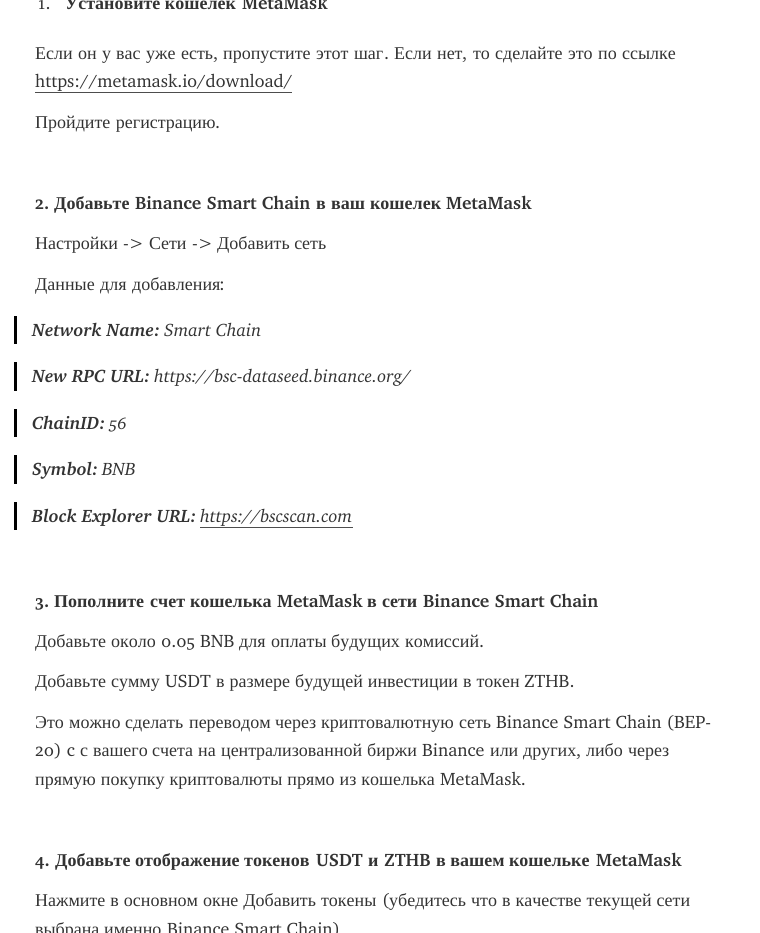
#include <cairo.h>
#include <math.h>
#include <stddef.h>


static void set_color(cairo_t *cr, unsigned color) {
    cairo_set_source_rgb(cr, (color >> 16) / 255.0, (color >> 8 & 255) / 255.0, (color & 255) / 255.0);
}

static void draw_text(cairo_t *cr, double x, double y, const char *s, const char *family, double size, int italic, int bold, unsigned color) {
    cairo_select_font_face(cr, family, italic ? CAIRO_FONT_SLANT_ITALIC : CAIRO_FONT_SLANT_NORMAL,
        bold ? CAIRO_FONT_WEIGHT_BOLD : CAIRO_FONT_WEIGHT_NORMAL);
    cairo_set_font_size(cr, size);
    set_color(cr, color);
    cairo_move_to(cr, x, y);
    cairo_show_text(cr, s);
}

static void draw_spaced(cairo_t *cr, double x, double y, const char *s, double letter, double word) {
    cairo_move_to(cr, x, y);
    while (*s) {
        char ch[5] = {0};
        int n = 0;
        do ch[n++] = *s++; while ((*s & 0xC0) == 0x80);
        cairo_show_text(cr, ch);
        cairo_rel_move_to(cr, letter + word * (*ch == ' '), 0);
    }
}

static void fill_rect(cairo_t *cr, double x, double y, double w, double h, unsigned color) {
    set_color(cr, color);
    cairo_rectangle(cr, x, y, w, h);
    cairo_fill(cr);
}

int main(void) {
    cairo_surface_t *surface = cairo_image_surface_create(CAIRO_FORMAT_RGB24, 760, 933);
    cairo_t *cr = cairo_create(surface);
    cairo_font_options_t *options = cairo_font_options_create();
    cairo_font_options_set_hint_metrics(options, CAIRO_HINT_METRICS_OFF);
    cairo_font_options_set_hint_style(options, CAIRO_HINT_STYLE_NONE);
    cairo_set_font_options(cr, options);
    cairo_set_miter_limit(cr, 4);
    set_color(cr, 0xFFFFFF);
    cairo_paint(cr);
    draw_text(cr, 38, 9, "1.", "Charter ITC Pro", 18, 0, 0, 0x333333);
    draw_text(cr, 65, 9, "Установите кошелек", "Liberation Serif", 18, 0, 1, 0x333333);
    draw_text(cr, 242, 9, "MetaMask", "Charter ITC Pro", 18, 0, 1, 0x333333);
    draw_text(cr, 35, 59, "Если", "Liberation Serif", 18, 0, 0, 0x333333);
    draw_text(cr, 78, 59, "он", "Liberation Serif", 18, 0, 0, 0x333333);
    draw_text(cr, 102, 59, "у", "Liberation Serif", 18, 0, 0, 0x333333);
    draw_text(cr, 116, 59, "вас", "Liberation Serif", 18, 0, 0, 0x333333);
    draw_text(cr, 146, 59, "уже", "Liberation Serif", 18, 0, 0, 0x333333);
    draw_text(cr, 181, 59, "есть", "Liberation Serif", 18, 0, 0, 0x333333);
    draw_text(cr, 213, 59, ",", "Charter ITC Pro", 18, 0, 0, 0x333333);
    draw_text(cr, 223, 59, "пропустите", "Liberation Serif", 18, 0, 0, 0x333333);
    draw_text(cr, 316, 59, "этот", "Liberation Serif", 18, 0, 0, 0x333333);
    draw_text(cr, 354, 59, "шаг", "Liberation Serif", 18, 0, 0, 0x333333);
    draw_text(cr, 384, 59, ".", "Charter ITC Pro", 18, 0, 0, 0x333333);
    draw_text(cr, 394, 59, "Если", "Liberation Serif", 18, 0, 0, 0x333333);
    draw_text(cr, 437, 59, "нет", "Liberation Serif", 18, 0, 0, 0x333333);
    draw_text(cr, 462, 59, ",", "Charter ITC Pro", 18, 0, 0, 0x333333);
    draw_text(cr, 473, 59, "то", "Liberation Serif", 18, 0, 0, 0x333333);
    draw_text(cr, 495, 59, "сделайте", "Liberation Serif", 18, 0, 0, 0x333333);
    draw_text(cr, 568, 59, "это", "Liberation Serif", 18, 0, 0, 0x333333);
    draw_text(cr, 598, 59, "по", "Liberation Serif", 18, 0, 0, 0x333333);
    draw_text(cr, 622, 59, "ссылке", "Liberation Serif", 18, 0, 0, 0x333333);
    draw_text(cr, 35, 87, "https://metamask.io/download/", "Charter ITC Pro", 18, 0, 0, 0x333333);
    fill_rect(cr, 35, 92, 257, 1, 0x4D4D4D);
    cairo_select_font_face(cr, "Liberation Serif", CAIRO_FONT_SLANT_NORMAL, CAIRO_FONT_WEIGHT_NORMAL);
    set_color(cr, 0x333333);
    draw_spaced(cr, 35, 128, "Пройдите регистрацию", 0, 1);
    draw_text(cr, 215, 128, ".", "Charter ITC Pro", 18, 0, 0, 0x333333);
    draw_text(cr, 35, 209, "2.", "Charter ITC Pro", 18, 0, 1, 0x333333);
    draw_text(cr, 54, 209, "Добавьте", "Liberation Serif", 18, 0, 1, 0x333333);
    draw_text(cr, 135, 209, "Binance Smart Chain", "Charter ITC Pro", 18, 0, 1, 0x333333);
    draw_text(cr, 316, 209, "в", "Liberation Serif", 18, 0, 1, 0x333333);
    draw_text(cr, 331, 209, "ваш", "Liberation Serif", 18, 0, 1, 0x333333);
    draw_text(cr, 370, 209, "кошелек", "Liberation Serif", 18, 0, 1, 0x333333);
    draw_text(cr, 446, 209, "MetaMask", "Charter ITC Pro", 18, 0, 1, 0x333333);
    draw_text(cr, 35, 249, "Настройки", "Liberation Serif", 18, 0, 0, 0x333333);
    draw_text(cr, 123, 249, "->", "Charter ITC Pro", 18, 0, 0, 0x333333);
    draw_text(cr, 149, 249, "Сети", "Liberation Serif", 18, 0, 0, 0x333333);
    draw_text(cr, 192, 249, "->", "Charter ITC Pro", 18, 0, 0, 0x333333);
    draw_text(cr, 217, 249, "Добавить сеть", "Liberation Serif", 18, 0, 0, 0x333333);
    draw_spaced(cr, 35, 290, "Данные для добавления", 0, 1);
    draw_text(cr, 219, 290, ":", "Charter ITC Pro", 18, 0, 0, 0x333333);
    fill_rect(cr, 14, 316, 3, 28, 0x000000);
    draw_text(cr, 32, 336, "Network Name:", "Charter ITC Pro", 18, 1, 1, 0x333333);
    draw_text(cr, 164, 336, "Smart Chain", "Charter ITC Pro", 18, 1, 0, 0x333333);
    fill_rect(cr, 14, 362, 3, 29, 0x000000);
    draw_text(cr, 32, 382, "New RPC URL:", "Charter ITC Pro", 18, 1, 1, 0x333333);
    draw_text(cr, 154, 382, "https://bsc-dataseed.binance.org/", "Charter ITC Pro", 18, 1, 0, 0x333333);
    fill_rect(cr, 14, 409, 3, 28, 0x000000);
    draw_text(cr, 32, 429, "ChainID:", "Charter ITC Pro", 18, 1, 1, 0x333333);
    draw_text(cr, 109, 429, "56", "Charter ITC Pro", 18, 1, 0, 0x333333);
    fill_rect(cr, 14, 455, 3, 29, 0x000000);
    draw_text(cr, 32, 475, "Symbol:", "Charter ITC Pro", 18, 1, 1, 0x333333);
    draw_text(cr, 102, 475, "BNB", "Charter ITC Pro", 18, 1, 0, 0x333333);
    fill_rect(cr, 14, 502, 3, 28, 0x000000);
    draw_text(cr, 32, 522, "Block Explorer URL:", "Charter ITC Pro", 18, 1, 1, 0x333333);
    draw_text(cr, 200, 522, "https://bscscan.com", "Charter ITC Pro", 18, 1, 0, 0x333333);
    fill_rect(cr, 200, 527, 153, 1, 0x4D4D4D);
    draw_text(cr, 35, 607, "3.", "Charter ITC Pro", 18, 0, 1, 0x333333);
    draw_text(cr, 54, 607, "Пополните", "Liberation Serif", 18, 0, 1, 0x333333);
    draw_text(cr, 150, 607, "счет", "Liberation Serif", 18, 0, 1, 0x333333);
    draw_text(cr, 190, 607, "кошелька", "Liberation Serif", 18, 0, 1, 0x333333);
    draw_text(cr, 277, 607, "MetaMask", "Charter ITC Pro", 18, 0, 1, 0x333333);
    draw_text(cr, 367, 607, "в", "Liberation Serif", 18, 0, 1, 0x333333);
    draw_text(cr, 382, 607, "сети", "Liberation Serif", 18, 0, 1, 0x333333);
    draw_text(cr, 423, 607, "Binance Smart Chain", "Charter ITC Pro", 18, 0, 1, 0x333333);
    draw_text(cr, 35, 647, "Добавьте", "Liberation Serif", 18, 0, 0, 0x333333);
    draw_text(cr, 111, 647, "около", "Liberation Serif", 18, 0, 0, 0x333333);
    draw_text(cr, 161, 647, "0.05 BNB", "Charter ITC Pro", 18, 0, 0, 0x333333);
    draw_text(cr, 239, 647, "для", "Liberation Serif", 18, 0, 0, 0x333333);
    draw_text(cr, 271, 647, "оплаты", "Liberation Serif", 18, 0, 0, 0x333333);
    draw_text(cr, 331, 647, "будущих", "Liberation Serif", 18, 0, 0, 0x333333);
    draw_text(cr, 405, 647, "комиссий", "Liberation Serif", 18, 0, 0, 0x333333);
    draw_text(cr, 479, 647, ".", "Charter ITC Pro", 18, 0, 0, 0x333333);
    cairo_select_font_face(cr, "Liberation Serif", CAIRO_FONT_SLANT_NORMAL, CAIRO_FONT_WEIGHT_NORMAL);
    draw_spaced(cr, 35, 687, "Добавьте сумму", 0, 0.5);
    draw_text(cr, 165, 687, "USDT", "Charter ITC Pro", 18, 0, 0, 0x333333);
    cairo_select_font_face(cr, "Liberation Serif", CAIRO_FONT_SLANT_NORMAL, CAIRO_FONT_WEIGHT_NORMAL);
    draw_spaced(cr, 216, 687, "в размере будущей инвестиции в токен", 0, 0.5);
    draw_text(cr, 524, 687, "ZTHB.", "Charter ITC Pro", 18, 0, 0, 0x333333);
    draw_text(cr, 35, 728, "Это", "Liberation Serif", 18, 0, 0, 0x333333);
    draw_text(cr, 69, 728, "можно", "Liberation Serif", 18, 0, 0, 0x333333);
    draw_text(cr, 125, 728, "сделать", "Liberation Serif", 18, 0, 0, 0x333333);
    draw_text(cr, 189, 728, "переводом", "Liberation Serif", 18, 0, 0, 0x333333);
    draw_text(cr, 275, 728, "через", "Liberation Serif", 18, 0, 0, 0x333333);
    draw_text(cr, 321, 728, "криптовалютную", "Liberation Serif", 18, 0, 0, 0x333333);
    draw_text(cr, 459, 728, "сеть", "Liberation Serif", 18, 0, 0, 0x333333);
    draw_text(cr, 496, 728, "Binance Smart Chain (BEP-", "Charter ITC Pro", 18, 0, 0, 0x333333);
    draw_text(cr, 35, 756, "20) c", "Charter ITC Pro", 18, 0, 0, 0x333333);
    draw_text(cr, 80, 756, "с", "Liberation Serif", 18, 0, 0, 0x333333);
    draw_text(cr, 93, 756, "вашего", "Liberation Serif", 18, 0, 0, 0x333333);
    draw_text(cr, 152, 756, "счета", "Liberation Serif", 18, 0, 0, 0x333333);
    draw_text(cr, 198, 756, "на", "Liberation Serif", 18, 0, 0, 0x333333);
    draw_text(cr, 221, 756, "централизованной", "Liberation Serif", 18, 0, 0, 0x333333);
    draw_text(cr, 367, 756, "биржи", "Liberation Serif", 18, 0, 0, 0x333333);
    draw_text(cr, 422, 756, "Binance", "Charter ITC Pro", 18, 0, 0, 0x333333);
    draw_text(cr, 490, 756, "или", "Liberation Serif", 18, 0, 0, 0x333333);
    draw_text(cr, 523, 756, "других", "Liberation Serif", 18, 0, 0, 0x333333);
    draw_text(cr, 576, 756, ",", "Charter ITC Pro", 18, 0, 0, 0x333333);
    draw_text(cr, 586, 756, "либо", "Liberation Serif", 18, 0, 0, 0x333333);
    draw_text(cr, 628, 756, "через", "Liberation Serif", 18, 0, 0, 0x333333);
    draw_spaced(cr, 35, 785, "прямую покупку криптовалюты прямо из кошелька", 0, 0.5);
    draw_text(cr, 440, 785, "MetaMask.", "Charter ITC Pro", 18, 0, 0, 0x333333);
    draw_text(cr, 35, 866, "4.", "Charter ITC Pro", 18, 0, 1, 0x333333);
    draw_text(cr, 55, 866, "Добавьте отображение токенов", "Liberation Serif", 18, 0, 1, 0x333333);
    draw_text(cr, 316, 866, "USDT", "Charter ITC Pro", 18, 0, 1, 0x333333);
    draw_text(cr, 368, 866, "и", "Liberation Serif", 18, 0, 1, 0x333333);
    draw_text(cr, 384, 866, "ZTHB", "Charter ITC Pro", 18, 0, 1, 0x333333);
    draw_text(cr, 436, 866, "в вашем кошельке", "Liberation Serif", 18, 0, 1, 0x333333);
    draw_text(cr, 596, 866, "MetaMask", "Charter ITC Pro", 18, 0, 1, 0x333333);
    cairo_select_font_face(cr, "Liberation Serif", CAIRO_FONT_SLANT_NORMAL, CAIRO_FONT_WEIGHT_NORMAL);
    draw_spaced(cr, 35, 906, "Нажмите в основном окне Добавить токены", 0, 0.5);
    draw_text(cr, 382, 906, "(", "Charter ITC Pro", 18, 0, 0, 0x333333);
    cairo_select_font_face(cr, "Liberation Serif", CAIRO_FONT_SLANT_NORMAL, CAIRO_FONT_WEIGHT_NORMAL);
    draw_spaced(cr, 389, 906, "убедитесь что в качестве текущей сети", 0, 0.5);
    draw_text(cr, 35, 935, "выбрана", "Liberation Serif", 18, 0, 0, 0x333333);
    draw_text(cr, 104, 935, "именно", "Liberation Serif", 18, 0, 0, 0x333333);
    draw_text(cr, 167, 935, "Binance Smart Chain)", "Charter ITC Pro", 18, 0, 0, 0x333333);
    cairo_surface_write_to_png(surface, "output.png");
    cairo_font_options_destroy(options);
    cairo_destroy(cr);
    cairo_surface_destroy(surface);
    return 0;
}
